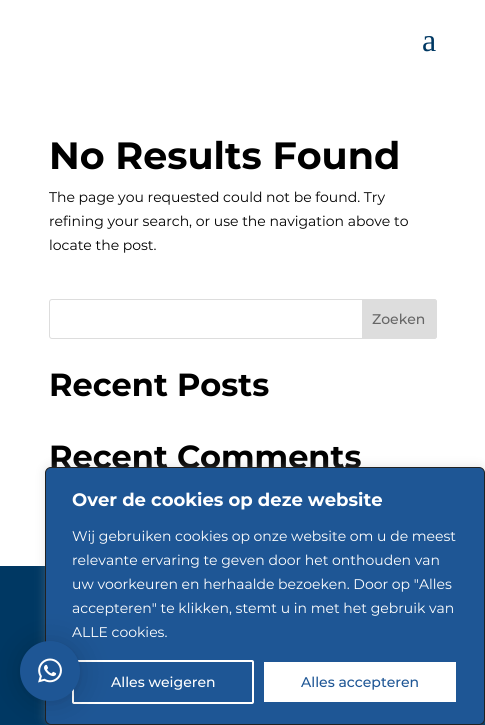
#include <cairo.h>
#include <math.h>
#include <stddef.h>


static void set_color(cairo_t *cr, unsigned color) {
    cairo_set_source_rgb(cr, (color >> 16) / 255.0, (color >> 8 & 255) / 255.0, (color & 255) / 255.0);
}

static void draw_text(cairo_t *cr, double x, double y, const char *s, const char *family, double size, int italic, int bold, unsigned color) {
    cairo_select_font_face(cr, family, italic ? CAIRO_FONT_SLANT_ITALIC : CAIRO_FONT_SLANT_NORMAL,
        bold ? CAIRO_FONT_WEIGHT_BOLD : CAIRO_FONT_WEIGHT_NORMAL);
    cairo_set_font_size(cr, size);
    set_color(cr, color);
    cairo_move_to(cr, x, y);
    cairo_show_text(cr, s);
}

static void fill_rect(cairo_t *cr, double x, double y, double w, double h, unsigned color) {
    set_color(cr, color);
    cairo_rectangle(cr, x, y, w, h);
    cairo_fill(cr);
}

static void rounded_rect(cairo_t *cr, double x, double y, double w, double h, double r) {
    cairo_new_sub_path(cr);
    cairo_arc(cr, x + w - r, y + h - r, r, 0, M_PI / 2);
    cairo_arc(cr, x + r, y + h - r, r, M_PI / 2, M_PI);
    cairo_arc(cr, x + r, y + r, r, M_PI, 1.5 * M_PI);
    cairo_arc(cr, x + w - r, y + r, r, 1.5 * M_PI, 2 * M_PI);
    cairo_close_path(cr);
}

static void draw_shadow(cairo_t *cr, double x, double y, double w, double h, double r, double blur, double alpha) {
    cairo_push_group_with_content(cr, CAIRO_CONTENT_ALPHA);
    cairo_set_operator(cr, CAIRO_OPERATOR_SOURCE);
    for (int i = 15; i >= -15 && fmin(w, h) + blur * i / 3 > 0; i -= 2) {
        double e = blur * i / 6;
        cairo_set_source_rgba(cr, 0, 0, 0, alpha * erfc((i - 1) / 8.5) / 2);
        rounded_rect(cr, x - e, y - e, w + 2 * e, h + 2 * e, fmax(0, fmin(r + e + blur * .6, fmin(w, h) / 2 + e)));
        cairo_fill(cr);
    }
    cairo_pattern_t *soft = cairo_pop_group(cr);
    cairo_mask(cr, soft);
    cairo_pattern_destroy(soft);
}

static void draw_image(cairo_t *cr, const char *path, double x, double y, double w, double h) {
    cairo_surface_t *image = cairo_image_surface_create_from_png(path);
    cairo_save(cr);
    cairo_set_source_surface(cr, image, x, y);
    cairo_rectangle(cr, x, y, w, h);
    cairo_fill(cr);
    cairo_restore(cr);
    cairo_surface_destroy(image);
}

int main(void) {
    cairo_surface_t *surface = cairo_image_surface_create(CAIRO_FORMAT_RGB24, 485, 725);
    cairo_t *cr = cairo_create(surface);
    cairo_font_options_t *options = cairo_font_options_create();
    cairo_font_options_set_hint_metrics(options, CAIRO_HINT_METRICS_OFF);
    cairo_font_options_set_hint_style(options, CAIRO_HINT_STYLE_NONE);
    cairo_set_font_options(cr, options);
    cairo_set_miter_limit(cr, 4);
    set_color(cr, 0xFFFFFF);
    cairo_paint(cr);
    draw_text(cr, 422, 51, "a", "Liberation Serif", 32, 0, 0, 0x003863);
    draw_text(cr, 49, 169, "No Results Found", "Montserrat", 38, 0, 1, 0x000000);
    draw_text(cr, 49, 202, "The page you requested could not be found. Try", "Montserrat", 14, 0, 0, 0x000000);
    draw_text(cr, 49, 226, "refining your search, or use the navigation above to", "Montserrat", 14, 0, 0, 0x000000);
    draw_text(cr, 49, 250, "locate the post.", "Montserrat", 14, 0, 0, 0x000000);
    rounded_rect(cr, 49.5, 299.5, 387, 39, 2.5);
    set_color(cr, 0xDDDDDD);
    cairo_set_line_width(cr, 1);
    cairo_stroke(cr);
    cairo_new_path(cr);
    cairo_move_to(cr, 362.5, 299.5);
    cairo_line_to(cr, 434, 299.5);
    cairo_curve_to(cr, 435.5, 299.5, 436.5, 300.5, 436.5, 302);
    cairo_line_to(cr, 436.5, 336);
    cairo_curve_to(cr, 436.5, 337.5, 435.5, 338.5, 434, 338.5);
    cairo_line_to(cr, 362.5, 338.5);
    cairo_close_path(cr);
    cairo_fill_preserve(cr);
    cairo_stroke(cr);
    draw_text(cr, 372, 324, "Zoeken", "Montserrat Medium", 14, 0, 0, 0x666666);
    draw_text(cr, 49, 396, "Recent Posts", "Montserrat", 32, 0, 1, 0x000000);
    draw_text(cr, 49, 468, "Recent Comments", "Montserrat", 32, 0, 1, 0x000000);
    fill_rect(cr, 0, 566, 485, 159, 0x003863);
    set_color(cr, 0xACABAB);
    draw_shadow(cr, 45, 466, 440, 258, 6, 5, 0.3);
    set_color(cr, 0x1E5695);
    rounded_rect(cr, 45.5, 467.5, 439, 257, 5.5);
    cairo_fill_preserve(cr);
    set_color(cr, 0x212121);
    cairo_stroke(cr);
    rounded_rect(cr, 73, 661, 180, 42, 1);
    set_color(cr, 0xFFFFFF);
    cairo_set_line_width(cr, 2);
    cairo_stroke(cr);
    set_color(cr, 0x000000);
    draw_shadow(cr, 20, 643, 60, 60, 30, 16, 0.16);
    draw_shadow(cr, 20, 642, 60, 60, 30, 3, 0.06);
    set_color(cr, 0x1E5695);
    cairo_arc(cr, 50, 671, 30, 0, 2 * M_PI);
    cairo_fill(cr);
    draw_image(cr, "assets/img1.png", 38, 658, 24, 25);
    draw_text(cr, 72, 506, "Over de cookies op deze website", "Montserrat", 18, 0, 1, 0xFFFFFF);
    draw_text(cr, 72, 541, "Wij gebruiken cookies op onze website om u de meest", "Montserrat", 14, 0, 0, 0xFFFFFF);
    draw_text(cr, 72, 565, "relevante ervaring te geven door het onthouden van", "Montserrat", 14, 0, 0, 0xFFFFFF);
    draw_text(cr, 72, 589, "uw voorkeuren en herhaalde bezoeken. Door op \"Alles", "Montserrat", 14, 0, 0, 0xFFFFFF);
    draw_text(cr, 72, 613, "accepteren\" te klikken, stemt u in met het gebruik van", "Montserrat", 14, 0, 0, 0xFFFFFF);
    draw_text(cr, 72, 637, "ALLE cookies.", "Montserrat", 14, 0, 0, 0xFFFFFF);
    draw_text(cr, 111, 687, "Alles weigeren", "Montserrat Medium", 14, 0, 0, 0xFFFFFF);
    rounded_rect(cr, 263, 661, 194, 42, 1);
    cairo_fill_preserve(cr);
    set_color(cr, 0x1E5695);
    cairo_stroke(cr);
    draw_text(cr, 301, 687, "Alles accepteren", "Montserrat Medium", 14, 0, 0, 0x1E5695);
    cairo_surface_write_to_png(surface, "output.png");
    cairo_font_options_destroy(options);
    cairo_destroy(cr);
    cairo_surface_destroy(surface);
    return 0;
}
